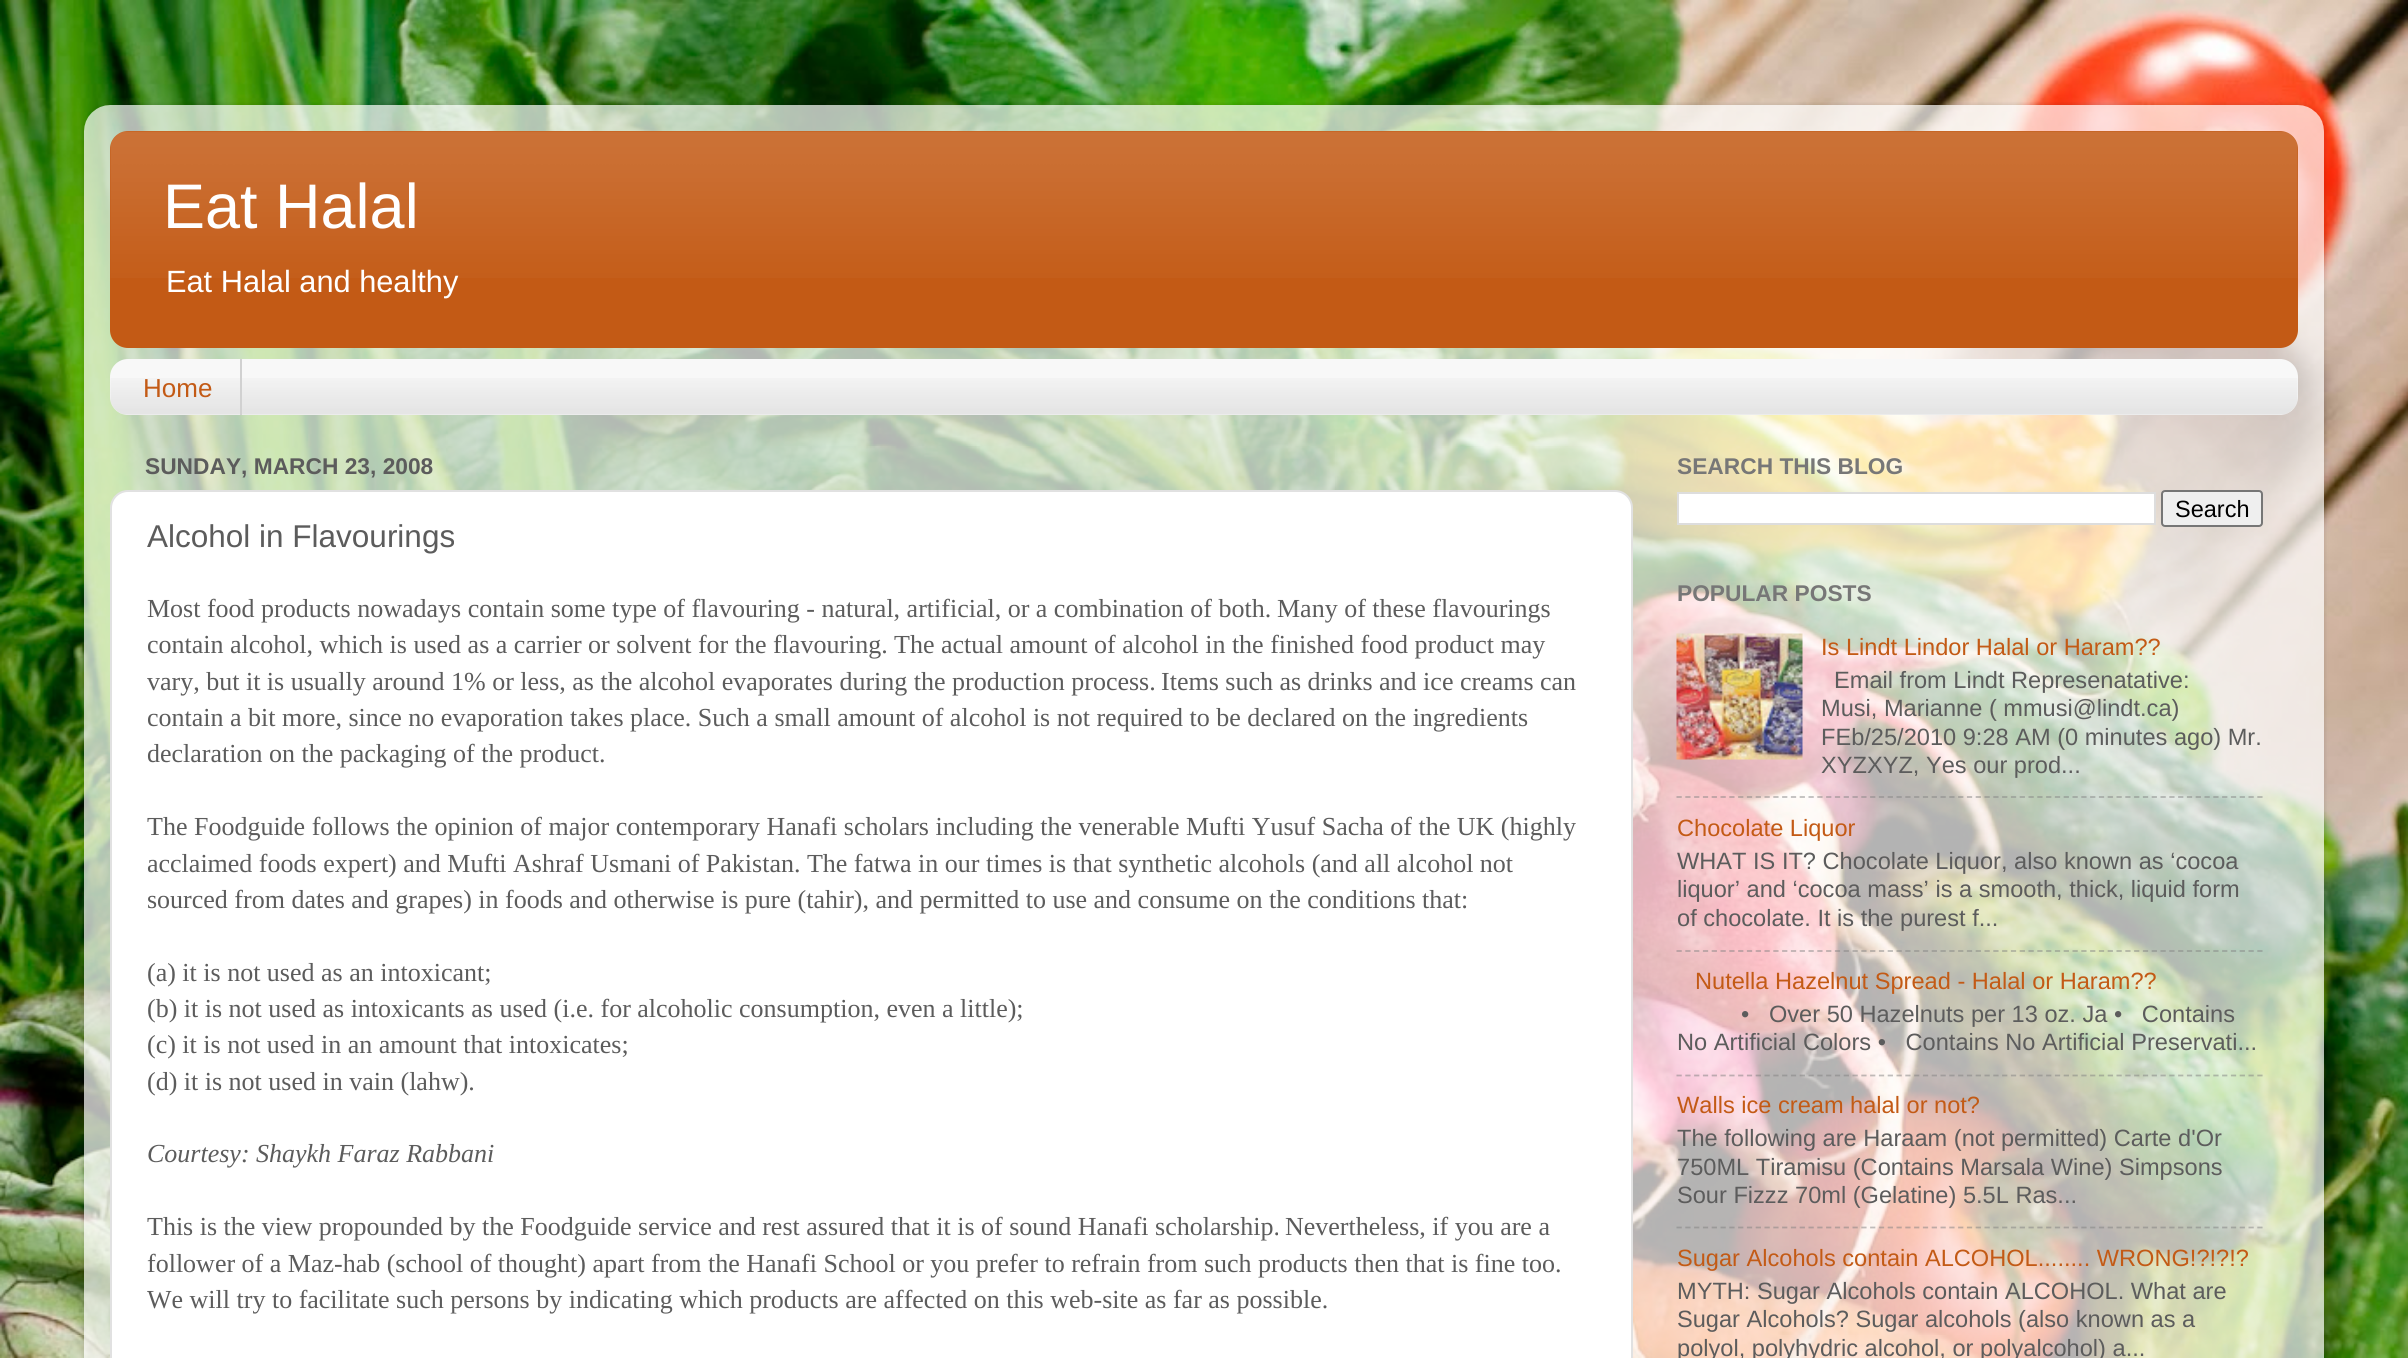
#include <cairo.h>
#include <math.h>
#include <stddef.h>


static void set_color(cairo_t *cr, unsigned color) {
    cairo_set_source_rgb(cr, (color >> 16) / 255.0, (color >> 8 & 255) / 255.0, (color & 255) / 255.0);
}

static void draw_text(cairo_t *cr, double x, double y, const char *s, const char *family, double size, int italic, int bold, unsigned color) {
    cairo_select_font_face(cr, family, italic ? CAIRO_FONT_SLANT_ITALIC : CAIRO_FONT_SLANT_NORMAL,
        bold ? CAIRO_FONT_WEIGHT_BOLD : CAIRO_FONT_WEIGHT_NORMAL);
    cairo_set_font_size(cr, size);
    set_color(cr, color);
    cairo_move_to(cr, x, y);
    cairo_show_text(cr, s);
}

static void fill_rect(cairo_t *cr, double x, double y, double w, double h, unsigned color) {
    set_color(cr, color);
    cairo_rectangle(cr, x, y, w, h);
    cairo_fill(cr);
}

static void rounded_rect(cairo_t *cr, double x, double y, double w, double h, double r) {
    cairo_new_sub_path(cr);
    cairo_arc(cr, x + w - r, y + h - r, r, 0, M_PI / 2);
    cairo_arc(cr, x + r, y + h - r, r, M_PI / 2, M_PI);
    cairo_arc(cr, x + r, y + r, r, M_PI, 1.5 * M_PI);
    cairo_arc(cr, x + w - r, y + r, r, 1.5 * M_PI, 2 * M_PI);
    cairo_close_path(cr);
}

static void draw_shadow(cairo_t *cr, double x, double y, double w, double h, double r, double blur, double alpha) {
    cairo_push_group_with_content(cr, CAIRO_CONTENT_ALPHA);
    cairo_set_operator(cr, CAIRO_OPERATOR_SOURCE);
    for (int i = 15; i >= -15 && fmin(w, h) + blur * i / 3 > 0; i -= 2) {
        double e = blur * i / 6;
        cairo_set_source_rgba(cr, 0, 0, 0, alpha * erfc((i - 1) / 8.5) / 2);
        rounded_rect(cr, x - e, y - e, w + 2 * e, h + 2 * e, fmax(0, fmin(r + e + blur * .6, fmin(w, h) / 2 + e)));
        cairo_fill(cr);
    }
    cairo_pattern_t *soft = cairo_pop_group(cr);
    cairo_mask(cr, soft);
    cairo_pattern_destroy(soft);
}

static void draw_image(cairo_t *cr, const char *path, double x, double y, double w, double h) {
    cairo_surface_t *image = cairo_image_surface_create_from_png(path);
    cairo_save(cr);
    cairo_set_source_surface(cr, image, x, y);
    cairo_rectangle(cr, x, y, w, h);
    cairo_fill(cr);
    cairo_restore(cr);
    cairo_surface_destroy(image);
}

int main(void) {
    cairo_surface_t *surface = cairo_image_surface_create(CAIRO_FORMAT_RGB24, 2408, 1358);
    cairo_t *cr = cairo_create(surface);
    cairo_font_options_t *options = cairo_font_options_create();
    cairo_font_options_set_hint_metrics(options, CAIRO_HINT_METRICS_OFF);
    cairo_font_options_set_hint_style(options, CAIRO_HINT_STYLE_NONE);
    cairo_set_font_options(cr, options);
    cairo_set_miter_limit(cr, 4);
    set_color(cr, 0xFFFFFF);
    cairo_paint(cr);
    draw_image(cr, "assets/img1.png", 0, 0, 2408, 1358);
    cairo_save(cr);
    cairo_set_fill_rule(cr, CAIRO_FILL_RULE_EVEN_ODD);
    cairo_new_path(cr);
    cairo_move_to(cr, 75, 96);
    cairo_line_to(cr, 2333, 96);
    cairo_line_to(cr, 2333, 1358);
    cairo_line_to(cr, 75, 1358);
    cairo_close_path(cr);
    cairo_move_to(cr, 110, 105);
    cairo_line_to(cr, 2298, 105);
    cairo_curve_to(cr, 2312.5, 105, 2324, 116.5, 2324, 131);
    cairo_line_to(cr, 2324, 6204);
    cairo_curve_to(cr, 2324, 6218.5, 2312.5, 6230, 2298, 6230);
    cairo_line_to(cr, 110, 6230);
    cairo_curve_to(cr, 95.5, 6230, 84, 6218.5, 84, 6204);
    cairo_line_to(cr, 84, 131);
    cairo_curve_to(cr, 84, 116.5, 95.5, 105, 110, 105);
    cairo_close_path(cr);
    cairo_clip(cr);
    set_color(cr, 0x000000);
    draw_shadow(cr, 84, 105, 2240, 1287, 26, 2.5, 0.15);
    cairo_restore(cr);
    draw_image(cr, "assets/img2.png", 84, 105, 2240, 1253);
    set_color(cr, 0xC35A15);
    rounded_rect(cr, 110, 131, 2188, 217, 18);
    cairo_fill(cr);
    draw_image(cr, "assets/img3.png", 110, 131, 2188, 147);
    draw_text(cr, 163, 228, "Eat Halal", "Liberation Sans", 63, 0, 0, 0xFFFFFF);
    draw_text(cr, 166, 292, "Eat Halal and healthy", "Liberation Sans", 30.75, 0, 0, 0xFFFFFF);
    set_color(cr, 0xF8F8F8);
    rounded_rect(cr, 110, 359, 2188, 56, 18);
    cairo_fill(cr);
    draw_image(cr, "assets/img4.png", 110, 378, 2188, 37);
    fill_rect(cr, 240, 359, 2, 56, 0xD1D1D1);
    draw_text(cr, 143, 397, "Home", "Liberation Sans", 26, 0, 0, 0xC35A15);
    draw_text(cr, 145, 474, "SUNDAY, MARCH 23, 2008", "Liberation Sans", 22.75, 0, 1, 0x5C5C5C);
    set_color(cr, 0xFFFFFF);
    rounded_rect(cr, 111, 491, 1521, 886, 17);
    cairo_fill_preserve(cr);
    set_color(cr, 0xE1E1E1);
    cairo_stroke(cr);
    draw_text(cr, 147, 547, "Alcohol in Flavourings", "Liberation Sans", 31.5, 0, 0, 0x5C5C5C);
    draw_text(cr, 147, 617, "Most food products nowadays contain some type of flavouring - natural, artificial, or a combination of both.", "Liberation Serif", 26, 0, 0, 0x5C5C5C);
    draw_text(cr, 1277, 617, "Many of these flavourings", "Liberation Serif", 26, 0, 0, 0x5C5C5C);
    draw_text(cr, 147, 653, "contain alcohol, which is used as a carrier or solvent for the flavouring.", "Liberation Serif", 26, 0, 0, 0x5C5C5C);
    draw_text(cr, 894, 653, "The actual amount of alcohol in the finished food product may", "Liberation Serif", 26, 0, 0, 0x5C5C5C);
    draw_text(cr, 147, 690, "vary, but it is usually around 1% or less, as the alcohol evaporates during the production process.", "Liberation Serif", 26, 0, 0, 0x5C5C5C);
    draw_text(cr, 1161, 690, "Items such as drinks and ice creams can", "Liberation Serif", 26, 0, 0, 0x5C5C5C);
    draw_text(cr, 147, 726, "contain a bit more, since no evaporation takes place. Such a small amount of alcohol is not required to be declared on the ingredients", "Liberation Serif", 26, 0, 0, 0x5C5C5C);
    draw_text(cr, 147, 762, "declaration on the packaging of the product.", "Liberation Serif", 26, 0, 0, 0x5C5C5C);
    draw_text(cr, 147, 835, "The Foodguide follows the opinion of major contemporary Hanafi scholars including the venerable Mufti Yusuf Sacha of the UK (highly", "Liberation Serif", 26, 0, 0, 0x5C5C5C);
    draw_text(cr, 147, 872, "acclaimed foods expert) and Mufti Ashraf Usmani of Pakistan. The fatwa in our times is that synthetic alcohols (and all alcohol not", "Liberation Serif", 26, 0, 0, 0x5C5C5C);
    draw_text(cr, 147, 908, "sourced from dates and grapes) in foods and otherwise is pure (tahir), and permitted to use and consume on the conditions that:", "Liberation Serif", 26, 0, 0, 0x5C5C5C);
    draw_text(cr, 147, 981, "(a) it is not used as an intoxicant;", "Liberation Serif", 26, 0, 0, 0x5C5C5C);
    draw_text(cr, 147, 1017, "(b) it is not used as intoxicants as used (i.e. for alcoholic consumption, even a little);", "Liberation Serif", 26, 0, 0, 0x5C5C5C);
    draw_text(cr, 147, 1053, "(c) it is not used in an amount that intoxicates;", "Liberation Serif", 26, 0, 0, 0x5C5C5C);
    draw_text(cr, 147, 1090, "(d) it is not used in vain (lahw).", "Liberation Serif", 26, 0, 0, 0x5C5C5C);
    draw_text(cr, 147, 1162, "Courtesy: Shaykh Faraz Rabbani", "Liberation Serif", 26, 1, 0, 0x5C5C5C);
    draw_text(cr, 147, 1235, "This is the view propounded by the Foodguide service and rest assured that it is of sound Hanafi scholarship.", "Liberation Serif", 26, 0, 0, 0x5C5C5C);
    draw_text(cr, 1285, 1235, "Nevertheless, if you are a", "Liberation Serif", 26, 0, 0, 0x5C5C5C);
    draw_text(cr, 147, 1272, "follower of a Maz-hab (school of thought) apart from the Hanafi School or you prefer to refrain from such products then that is fine too.", "Liberation Serif", 26, 0, 0, 0x5C5C5C);
    draw_text(cr, 147, 1308, "We will try to facilitate such persons by indicating which products are affected on this web-site as far as possible.", "Liberation Serif", 26, 0, 0, 0x5C5C5C);
    draw_text(cr, 1677, 474, "SEARCH THIS BLOG", "Liberation Sans", 22.75, 0, 1, 0x777777);
    set_color(cr, 0xFFFFFF);
    cairo_rectangle(cr, 1678, 493, 477, 31);
    cairo_fill_preserve(cr);
    set_color(cr, 0xDDDDDD);
    cairo_stroke(cr);
    set_color(cr, 0xEFEFEF);
    rounded_rect(cr, 2162, 491, 100, 35, 3);
    cairo_fill_preserve(cr);
    set_color(cr, 0x767676);
    cairo_stroke(cr);
    draw_text(cr, 2175, 517, "Search", "Liberation Sans", 23.5, 0, 0, 0x000000);
    draw_text(cr, 1677, 601, "POPULAR POSTS", "Liberation Sans", 22.75, 0, 1, 0x777777);
    draw_image(cr, "assets/img5.png", 1676, 633, 127, 127);
    draw_text(cr, 1821, 655, "Is Lindt Lindor Halal or Haram?\077", "Liberation Sans", 23.6, 0, 0, 0xC35A15);
    draw_text(cr, 1834, 688, "Email from Lindt Represenatative:", "Liberation Sans", 23.6, 0, 0, 0x5C5C5C);
    draw_text(cr, 1821, 716, "Musi, Marianne ( mmusi@lindt.ca)", "Liberation Sans", 23.6, 0, 0, 0x5C5C5C);
    draw_text(cr, 1821, 745, "FEb/25/2010 9:28 AM (0 minutes ago) Mr.", "Liberation Sans", 23.6, 0, 0, 0x5C5C5C);
    draw_text(cr, 1821, 773, "XYZXYZ, Yes our prod...", "Liberation Sans", 23.6, 0, 0, 0x5C5C5C);
    cairo_new_path(cr);
    cairo_move_to(cr, 1676.5, 797);
    cairo_line_to(cr, 2263, 797);
    cairo_set_source_rgba(cr, 0.502, 0.502, 0.502, 0.5);
    cairo_set_line_width(cr, 1.8);
    cairo_set_dash(cr, (double[]){5.25, 3.55}, 2, 0);
    cairo_stroke(cr);
    draw_text(cr, 1677, 836, "Chocolate Liquor", "Liberation Sans", 23.6, 0, 0, 0xC35A15);
    draw_text(cr, 1677, 869, "WHAT IS IT? Chocolate Liquor, also known as ‘cocoa", "Liberation Sans", 23.6, 0, 0, 0x5C5C5C);
    draw_text(cr, 1677, 897, "liquor’ and ‘cocoa mass’ is a smooth, thick, liquid form", "Liberation Sans", 23.6, 0, 0, 0x5C5C5C);
    draw_text(cr, 1677, 926, "of chocolate. It is the purest f...", "Liberation Sans", 23.6, 0, 0, 0x5C5C5C);
    cairo_new_path(cr);
    cairo_move_to(cr, 1676.5, 951);
    cairo_line_to(cr, 2263, 951);
    cairo_set_source_rgba(cr, 0.502, 0.502, 0.502, 0.5);
    cairo_stroke(cr);
    draw_text(cr, 1695, 989, "Nutella Hazelnut Spread - Halal or Haram?\077", "Liberation Sans", 23.6, 0, 0, 0xC35A15);
    draw_text(cr, 1741, 1022, "•   Over 50 Hazelnuts per 13 oz. Ja •   Contains", "Liberation Sans", 23.6, 0, 0, 0x5C5C5C);
    draw_text(cr, 1677, 1050, "No Artificial Colors •   Contains No Artificial Preservati...", "Liberation Sans", 23.6, 0, 0, 0x5C5C5C);
    cairo_new_path(cr);
    cairo_move_to(cr, 1676.5, 1075.5);
    cairo_line_to(cr, 2263, 1075.5);
    cairo_set_source_rgba(cr, 0.502, 0.502, 0.502, 0.5);
    cairo_stroke(cr);
    draw_text(cr, 1677, 1113, "Walls ice cream halal or not?", "Liberation Sans", 23.6, 0, 0, 0xC35A15);
    draw_text(cr, 1677, 1146, "The following are Haraam (not permitted) Carte d'Or", "Liberation Sans", 23.6, 0, 0, 0x5C5C5C);
    draw_text(cr, 1677, 1175, "750ML Tiramisu (Contains Marsala Wine) Simpsons", "Liberation Sans", 23.6, 0, 0, 0x5C5C5C);
    draw_text(cr, 1677, 1203, "Sour Fizzz 70ml (Gelatine) 5.5L Ras...", "Liberation Sans", 23.6, 0, 0, 0x5C5C5C);
    cairo_new_path(cr);
    cairo_move_to(cr, 1676.5, 1227.5);
    cairo_line_to(cr, 2263, 1227.5);
    cairo_set_source_rgba(cr, 0.502, 0.502, 0.502, 0.5);
    cairo_stroke(cr);
    draw_text(cr, 1677, 1266, "Sugar Alcohols contain ALCOHOL........ WRONG!?!?!?", "Liberation Sans", 23.6, 0, 0, 0xC35A15);
    draw_text(cr, 1677, 1299, "MYTH: Sugar Alcohols contain ALCOHOL. What are", "Liberation Sans", 23.6, 0, 0, 0x5C5C5C);
    draw_text(cr, 1677, 1327, "Sugar Alcohols? Sugar alcohols (also known as a", "Liberation Sans", 23.6, 0, 0, 0x5C5C5C);
    draw_text(cr, 1677, 1356, "polyol, polyhydric alcohol, or polyalcohol) a...", "Liberation Sans", 23.6, 0, 0, 0x5C5C5C);
    cairo_surface_write_to_png(surface, "output.png");
    cairo_font_options_destroy(options);
    cairo_destroy(cr);
    cairo_surface_destroy(surface);
    return 0;
}
